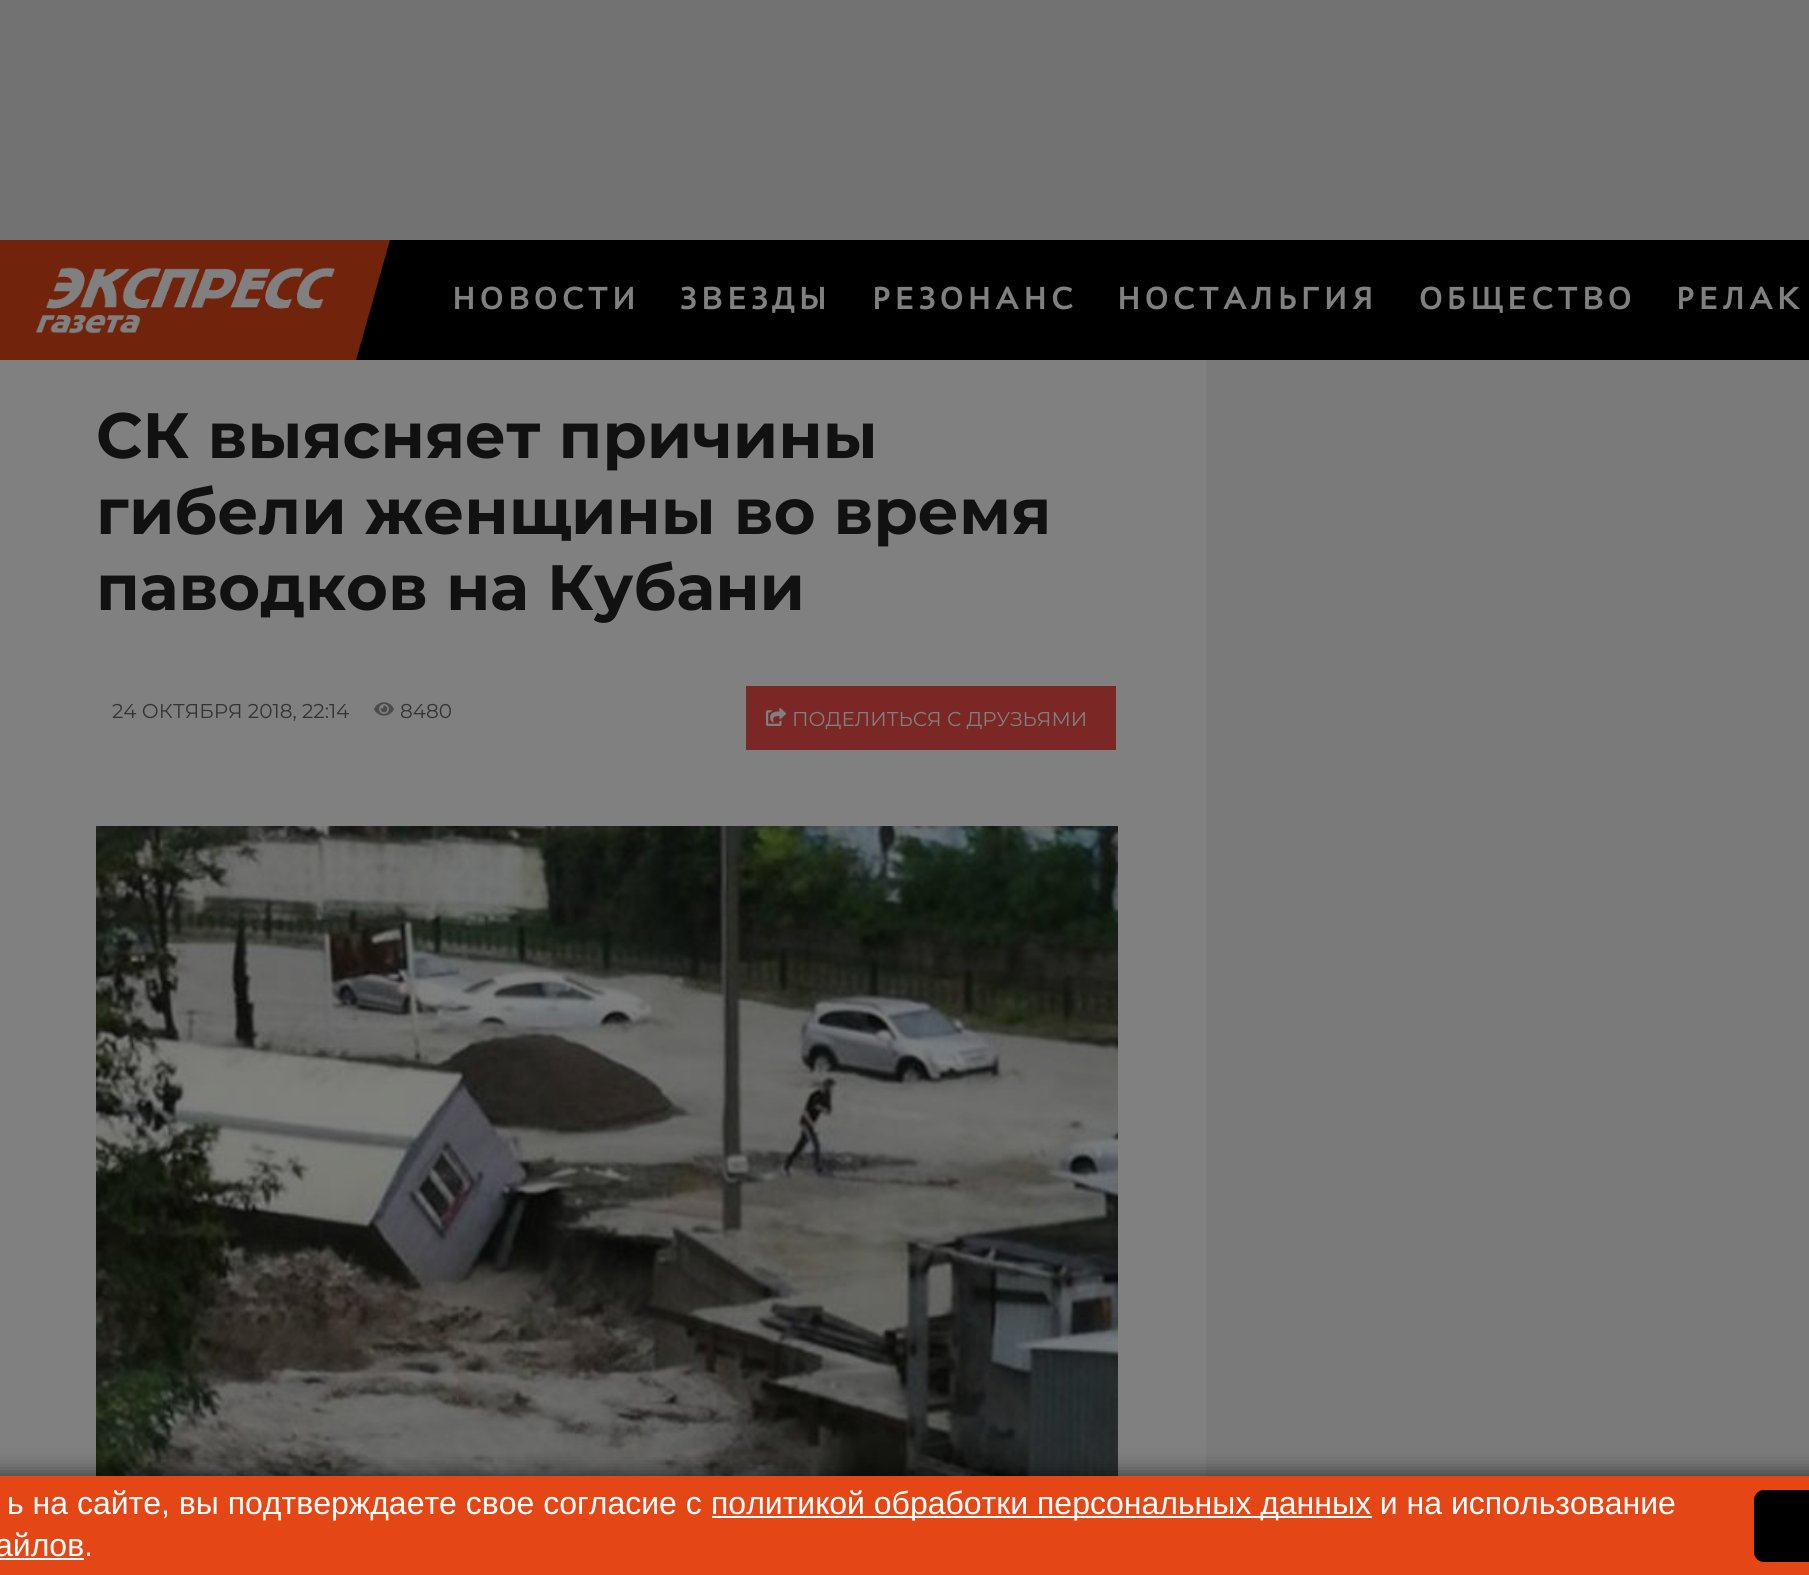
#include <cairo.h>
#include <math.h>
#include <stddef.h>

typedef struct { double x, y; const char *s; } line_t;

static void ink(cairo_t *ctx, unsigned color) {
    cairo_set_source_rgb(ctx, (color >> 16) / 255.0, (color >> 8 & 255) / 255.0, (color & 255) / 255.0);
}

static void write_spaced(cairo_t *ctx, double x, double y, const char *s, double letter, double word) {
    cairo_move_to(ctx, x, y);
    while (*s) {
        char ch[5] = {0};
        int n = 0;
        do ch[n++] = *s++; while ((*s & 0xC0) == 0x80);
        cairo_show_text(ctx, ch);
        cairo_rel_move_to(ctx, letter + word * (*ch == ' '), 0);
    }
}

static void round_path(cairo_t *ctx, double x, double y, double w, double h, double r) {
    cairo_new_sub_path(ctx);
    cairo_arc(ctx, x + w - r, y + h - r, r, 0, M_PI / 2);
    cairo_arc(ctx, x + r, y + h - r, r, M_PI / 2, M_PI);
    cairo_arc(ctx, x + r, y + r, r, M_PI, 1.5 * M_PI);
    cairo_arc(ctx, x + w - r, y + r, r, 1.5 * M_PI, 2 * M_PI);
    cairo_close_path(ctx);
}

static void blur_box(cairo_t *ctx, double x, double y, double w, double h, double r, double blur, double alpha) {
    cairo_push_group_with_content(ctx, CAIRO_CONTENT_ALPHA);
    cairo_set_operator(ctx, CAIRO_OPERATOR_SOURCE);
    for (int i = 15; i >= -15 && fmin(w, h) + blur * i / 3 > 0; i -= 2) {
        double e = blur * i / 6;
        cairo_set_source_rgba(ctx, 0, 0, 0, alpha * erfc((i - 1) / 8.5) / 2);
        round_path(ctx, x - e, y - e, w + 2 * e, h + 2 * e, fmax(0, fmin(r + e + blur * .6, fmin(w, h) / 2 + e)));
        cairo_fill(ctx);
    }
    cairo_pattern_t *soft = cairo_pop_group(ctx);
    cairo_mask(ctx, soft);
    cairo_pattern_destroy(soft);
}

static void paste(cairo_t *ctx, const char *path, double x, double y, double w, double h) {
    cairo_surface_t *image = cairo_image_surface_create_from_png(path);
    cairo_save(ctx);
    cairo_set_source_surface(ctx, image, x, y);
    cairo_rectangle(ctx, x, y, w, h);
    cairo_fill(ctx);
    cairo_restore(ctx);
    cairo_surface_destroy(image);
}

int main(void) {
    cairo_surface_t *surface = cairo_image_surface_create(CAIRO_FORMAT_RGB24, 1809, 1575);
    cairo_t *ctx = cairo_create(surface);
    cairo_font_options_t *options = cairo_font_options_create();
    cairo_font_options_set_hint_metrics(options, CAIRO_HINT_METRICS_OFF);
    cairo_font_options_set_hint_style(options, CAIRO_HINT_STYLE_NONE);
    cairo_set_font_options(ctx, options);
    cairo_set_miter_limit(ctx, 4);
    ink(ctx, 0x727272);
    cairo_paint(ctx);
    ink(ctx, 0x000000);
    cairo_rectangle(ctx, 391, 240, 1418, 120);
    cairo_fill(ctx);
    paste(ctx, "media/1.png", 0, 240, 391, 120);
    cairo_select_font_face(ctx, "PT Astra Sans", CAIRO_FONT_SLANT_NORMAL, CAIRO_FONT_WEIGHT_BOLD);
    cairo_set_font_size(ctx, 32);
    ink(ctx, 0x808080);
    {
        static const line_t items[] = {
            {452, 309, "НОВОСТИ"},
            {680, 309, "ЗВЕЗДЫ"},
            {872, 309, "РЕЗОНАНС"},
            {1117, 309, "НОСТАЛЬГИЯ"},
            {1419, 309, "ОБЩЕСТВО"},
            {1676, 309, "РЕЛАК"},
        };
        for (size_t i = 0; i < sizeof items / sizeof *items; i++) {
            write_spaced(ctx, items[i].x, items[i].y, items[i].s, 4.75, 0);
        }
    }
    ink(ctx, 0x7A7A7A);
    cairo_rectangle(ctx, 1206, 360, 603, 1116);
    cairo_fill(ctx);
    ink(ctx, 0x808080);
    cairo_rectangle(ctx, 0, 360, 1206, 1116);
    cairo_fill(ctx);
    cairo_select_font_face(ctx, "Montserrat", CAIRO_FONT_SLANT_NORMAL, CAIRO_FONT_WEIGHT_BOLD);
    cairo_set_font_size(ctx, 64);
    ink(ctx, 0x111111);
    {
        static const line_t items[] = {
            {96, 458, "СК выясняет причины"},
            {96, 534, "гибели женщины во время"},
            {96, 610, "паводков на Кубани"},
        };
        for (size_t i = 0; i < sizeof items / sizeof *items; i++) {
            cairo_move_to(ctx, items[i].x, items[i].y);
            cairo_show_text(ctx, items[i].s);
        }
    }
    cairo_select_font_face(ctx, "Montserrat", CAIRO_FONT_SLANT_NORMAL, CAIRO_FONT_WEIGHT_NORMAL);
    cairo_set_font_size(ctx, 20);
    ink(ctx, 0x333333);
    cairo_move_to(ctx, 112, 718);
    cairo_show_text(ctx, "24 ОКТЯБРЯ 2018, 22:14");
    paste(ctx, "media/2.png", 374, 702, 20, 14);
    cairo_move_to(ctx, 400, 718);
    cairo_show_text(ctx, "8480");
    ink(ctx, 0x7B2726);
    cairo_rectangle(ctx, 746, 686, 370, 64);
    cairo_fill(ctx);
    paste(ctx, "media/3.png", 766, 708, 20, 18);
    ink(ctx, 0x808080);
    cairo_move_to(ctx, 792, 726);
    cairo_show_text(ctx, "ПОДЕЛИТЬСЯ С ДРУЗЬЯМИ");
    paste(ctx, "media/4.png", 96, 826, 1022, 650);
    ink(ctx, 0x000000);
    blur_box(ctx, -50, 1472, 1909, 100, 20, 10, 0.5);
    ink(ctx, 0xE44616);
    cairo_rectangle(ctx, 0, 1476, 1809, 99);
    cairo_fill(ctx);
    cairo_select_font_face(ctx, "Liberation Sans", CAIRO_FONT_SLANT_NORMAL, CAIRO_FONT_WEIGHT_NORMAL);
    cairo_set_font_size(ctx, 32);
    ink(ctx, 0xFFFFFF);
    cairo_move_to(ctx, 7, 1514);
    cairo_show_text(ctx, "ь на сайте, вы подтверждаете свое согласие с");
    cairo_rectangle(ctx, 712, 1516, 660, 2);
    cairo_fill(ctx);
    cairo_move_to(ctx, 711, 1514);
    cairo_show_text(ctx, "политикой обработки персональных данных и на использование");
    cairo_move_to(ctx, -5, 1556);
    cairo_show_text(ctx, "айлов.");
    cairo_rectangle(ctx, 0, 1558, 84, 2);
    cairo_fill(ctx);
    ink(ctx, 0x000000);
    round_path(ctx, 1754, 1490, 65, 72, 10);
    cairo_fill(ctx);
    cairo_surface_write_to_png(surface, "image.png");
    cairo_font_options_destroy(options);
    cairo_destroy(ctx);
    cairo_surface_destroy(surface);
    return 0;
}
